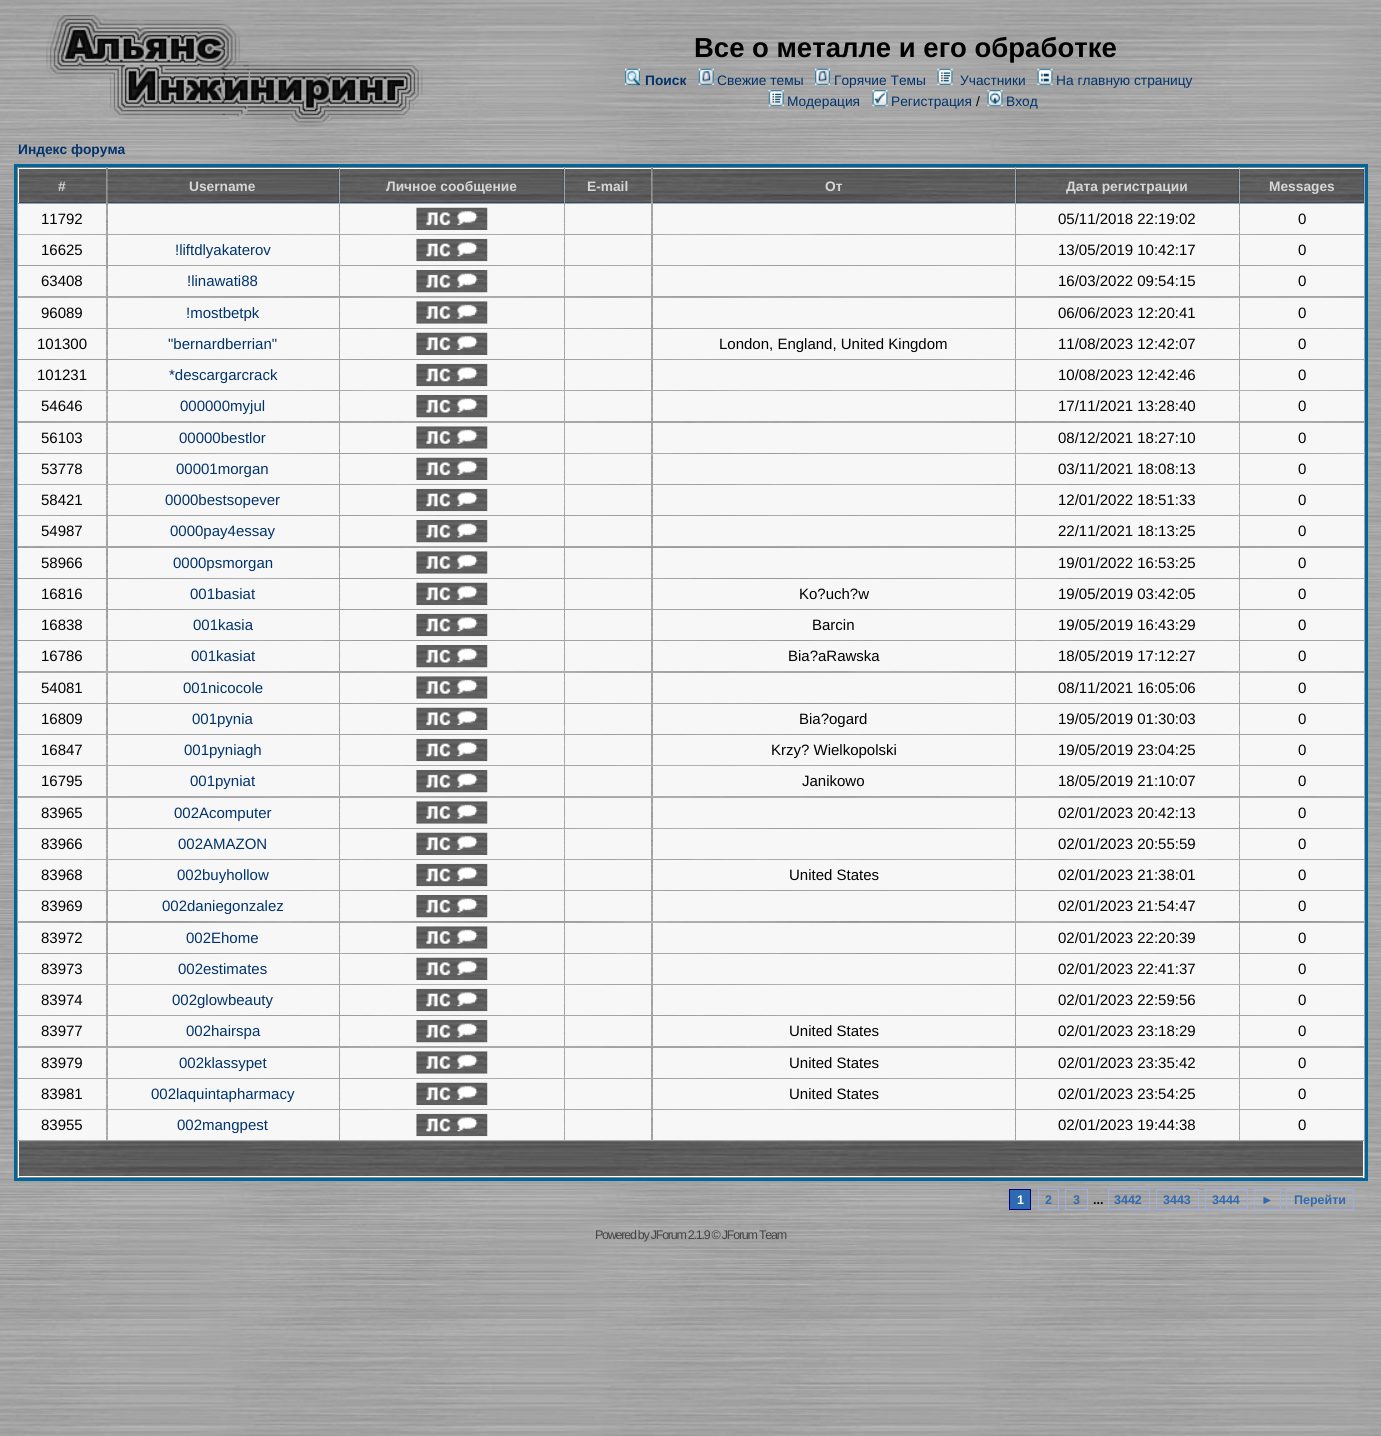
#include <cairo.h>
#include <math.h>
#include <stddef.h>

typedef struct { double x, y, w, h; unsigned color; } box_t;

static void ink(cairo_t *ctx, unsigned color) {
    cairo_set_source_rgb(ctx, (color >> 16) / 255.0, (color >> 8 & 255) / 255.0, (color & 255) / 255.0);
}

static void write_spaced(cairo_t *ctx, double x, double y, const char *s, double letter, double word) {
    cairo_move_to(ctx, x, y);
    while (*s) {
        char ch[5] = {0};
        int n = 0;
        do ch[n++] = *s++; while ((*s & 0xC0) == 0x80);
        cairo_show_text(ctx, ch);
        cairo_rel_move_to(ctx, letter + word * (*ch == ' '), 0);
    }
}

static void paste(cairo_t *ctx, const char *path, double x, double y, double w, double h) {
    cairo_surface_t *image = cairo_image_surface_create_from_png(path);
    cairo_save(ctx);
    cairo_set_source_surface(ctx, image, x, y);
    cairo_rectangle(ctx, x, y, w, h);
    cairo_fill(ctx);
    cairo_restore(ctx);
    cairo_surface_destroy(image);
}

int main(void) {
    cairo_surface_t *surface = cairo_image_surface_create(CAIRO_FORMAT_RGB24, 1381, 1436);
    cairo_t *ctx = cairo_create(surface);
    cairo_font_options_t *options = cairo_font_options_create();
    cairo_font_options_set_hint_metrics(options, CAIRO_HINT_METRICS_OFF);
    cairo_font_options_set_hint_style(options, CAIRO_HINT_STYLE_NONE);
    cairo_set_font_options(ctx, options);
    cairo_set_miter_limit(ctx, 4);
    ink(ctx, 0xFFFFFF);
    cairo_paint(ctx);
    paste(ctx, "media/1.png", 0, 0, 1381, 1436);
    paste(ctx, "media/2.png", 46, 15, 377, 112);
    cairo_select_font_face(ctx, "Liberation Sans", CAIRO_FONT_SLANT_NORMAL, CAIRO_FONT_WEIGHT_BOLD);
    cairo_set_font_size(ctx, 27.5);
    ink(ctx, 0x000000);
    cairo_move_to(ctx, 694, 57);
    cairo_show_text(ctx, "Все о металле и его обработке");
    paste(ctx, "media/3.png", 625, 68, 15, 17);
    cairo_set_font_size(ctx, 13.75);
    ink(ctx, 0x01336B);
    cairo_move_to(ctx, 645, 85);
    cairo_show_text(ctx, "Поиск");
    paste(ctx, "media/4.png", 698, 68, 16, 17);
    cairo_select_font_face(ctx, "Liberation Sans", CAIRO_FONT_SLANT_NORMAL, CAIRO_FONT_WEIGHT_NORMAL);
    cairo_move_to(ctx, 717, 85);
    cairo_show_text(ctx, "Свежие темы");
    paste(ctx, "media/5.png", 815, 68, 15, 17);
    cairo_move_to(ctx, 834, 85);
    cairo_show_text(ctx, "Горячие Темы");
    paste(ctx, "media/6.png", 937, 68, 16, 17);
    cairo_move_to(ctx, 960, 85);
    cairo_show_text(ctx, "Участники");
    paste(ctx, "media/7.png", 1037, 68, 16, 17);
    cairo_move_to(ctx, 1056, 85);
    cairo_show_text(ctx, "На главную страницу");
    paste(ctx, "media/8.png", 768, 90, 16, 17);
    cairo_move_to(ctx, 787, 106);
    cairo_show_text(ctx, "Модерация");
    paste(ctx, "media/9.png", 872, 90, 16, 17);
    cairo_move_to(ctx, 891, 106);
    cairo_show_text(ctx, "Регистрация");
    ink(ctx, 0x000000);
    cairo_move_to(ctx, 976, 106);
    cairo_show_text(ctx, "/");
    paste(ctx, "media/10.png", 987, 90, 16, 17);
    ink(ctx, 0x01336B);
    cairo_move_to(ctx, 1006, 106);
    cairo_show_text(ctx, "Вход");
    cairo_select_font_face(ctx, "Liberation Sans", CAIRO_FONT_SLANT_NORMAL, CAIRO_FONT_WEIGHT_BOLD);
    cairo_move_to(ctx, 18, 154);
    cairo_show_text(ctx, "Индекс форума");
    cairo_rectangle(ctx, 15.5, 165.5, 1351, 1014);
    ink(ctx, 0x006699);
    cairo_set_line_width(ctx, 3);
    cairo_stroke(ctx);
    ink(ctx, 0x01336B);
    cairo_rectangle(ctx, 19, 202, 87, 1);
    cairo_fill(ctx);
    paste(ctx, "media/11.png", 17, 167, 90, 36);
    ink(ctx, 0xFFFFFF);
    cairo_rectangle(ctx, 18, 168, 88, 1);
    cairo_fill(ctx);
    cairo_rectangle(ctx, 18, 168, 1, 35);
    cairo_fill(ctx);
    ink(ctx, 0xD6D6D6);
    cairo_move_to(ctx, 58, 191);
    cairo_show_text(ctx, "#");
    ink(ctx, 0x01336B);
    cairo_rectangle(ctx, 108, 169, 231, 34);
    cairo_fill(ctx);
    paste(ctx, "media/12.png", 107, 167, 232, 36);
    ink(ctx, 0xFFFFFF);
    cairo_rectangle(ctx, 108, 168, 231, 1);
    cairo_fill(ctx);
    ink(ctx, 0xD6D6D6);
    cairo_move_to(ctx, 189, 191);
    cairo_show_text(ctx, "Username");
    ink(ctx, 0x01336B);
    cairo_rectangle(ctx, 340, 169, 224, 34);
    cairo_fill(ctx);
    paste(ctx, "media/13.png", 340, 167, 224, 36);
    ink(ctx, 0xFFFFFF);
    cairo_rectangle(ctx, 340, 168, 224, 1);
    cairo_fill(ctx);
    ink(ctx, 0xD6D6D6);
    cairo_move_to(ctx, 386, 191);
    cairo_show_text(ctx, "Личное сообщение");
    ink(ctx, 0x01336B);
    cairo_rectangle(ctx, 565, 202, 86, 1);
    cairo_fill(ctx);
    paste(ctx, "media/14.png", 565, 167, 87, 36);
    ink(ctx, 0xFFFFFF);
    cairo_rectangle(ctx, 565, 168, 86, 1);
    cairo_fill(ctx);
    ink(ctx, 0xD6D6D6);
    cairo_move_to(ctx, 587, 191);
    cairo_show_text(ctx, "E-mail");
    ink(ctx, 0x01336B);
    cairo_rectangle(ctx, 653, 202, 362, 1);
    cairo_fill(ctx);
    paste(ctx, "media/15.png", 652, 167, 363, 36);
    ink(ctx, 0xFFFFFF);
    cairo_rectangle(ctx, 653, 168, 362, 1);
    cairo_fill(ctx);
    ink(ctx, 0xD6D6D6);
    cairo_move_to(ctx, 825, 191);
    cairo_show_text(ctx, "От");
    ink(ctx, 0x01336B);
    cairo_rectangle(ctx, 1016, 169, 223, 34);
    cairo_fill(ctx);
    paste(ctx, "media/16.png", 1016, 167, 223, 36);
    ink(ctx, 0xFFFFFF);
    cairo_rectangle(ctx, 1016, 168, 223, 1);
    cairo_fill(ctx);
    ink(ctx, 0xD6D6D6);
    cairo_move_to(ctx, 1066, 191);
    cairo_show_text(ctx, "Дата регистрации");
    ink(ctx, 0x01336B);
    cairo_rectangle(ctx, 1240, 169, 124, 34);
    cairo_fill(ctx);
    paste(ctx, "media/17.png", 1240, 167, 124, 36);
    ink(ctx, 0xFFFFFF);
    cairo_rectangle(ctx, 1240, 168, 124, 1);
    cairo_fill(ctx);
    ink(ctx, 0xD6D6D6);
    cairo_move_to(ctx, 1269, 191);
    cairo_show_text(ctx, "Messages");
    ink(ctx, 0xF7F7F8);
    cairo_rectangle(ctx, 18, 204, 88, 30);
    cairo_fill(ctx);
    cairo_select_font_face(ctx, "Liberation Sans", CAIRO_FONT_SLANT_NORMAL, CAIRO_FONT_WEIGHT_NORMAL);
    cairo_set_font_size(ctx, 15);
    ink(ctx, 0x000000);
    cairo_move_to(ctx, 41, 224);
    cairo_show_text(ctx, "11792");
    ink(ctx, 0xF7F7F8);
    cairo_rectangle(ctx, 108, 204, 231, 30);
    cairo_fill(ctx);
    cairo_rectangle(ctx, 340, 204, 224, 30);
    cairo_fill(ctx);
    paste(ctx, "media/18.png", 416, 207, 72, 23);
    {
        static const box_t items[] = {
            {565, 204, 86, 30, 0xF7F7F8},
            {653, 204, 362, 30, 0xF7F7F8},
            {1016, 204, 223, 30, 0xF7F7F8},
        };
        for (size_t i = 0; i < sizeof items / sizeof *items; i++) {
            ink(ctx, items[i].color);
            cairo_rectangle(ctx, items[i].x, items[i].y, items[i].w, items[i].h);
            cairo_fill(ctx);
        }
    }
    ink(ctx, 0x000000);
    cairo_move_to(ctx, 1058, 224);
    cairo_show_text(ctx, "05/11/2018 22:19:02");
    ink(ctx, 0xF7F7F8);
    cairo_rectangle(ctx, 1240, 204, 124, 30);
    cairo_fill(ctx);
    ink(ctx, 0x000000);
    cairo_move_to(ctx, 1298, 224);
    cairo_show_text(ctx, "0");
    ink(ctx, 0xF7F7F8);
    cairo_rectangle(ctx, 18, 235, 88, 30);
    cairo_fill(ctx);
    ink(ctx, 0x000000);
    cairo_move_to(ctx, 41, 255);
    cairo_show_text(ctx, "16625");
    ink(ctx, 0xF7F7F8);
    cairo_rectangle(ctx, 108, 235, 231, 30);
    cairo_fill(ctx);
    ink(ctx, 0x01336B);
    cairo_move_to(ctx, 175, 255);
    cairo_show_text(ctx, "!liftdlyakaterov");
    ink(ctx, 0xF7F7F8);
    cairo_rectangle(ctx, 340, 235, 224, 30);
    cairo_fill(ctx);
    paste(ctx, "media/19.png", 416, 238, 72, 24);
    {
        static const box_t items[] = {
            {565, 235, 86, 30, 0xF7F7F8},
            {653, 235, 362, 30, 0xF7F7F8},
            {1016, 235, 223, 30, 0xF7F7F8},
        };
        for (size_t i = 0; i < sizeof items / sizeof *items; i++) {
            ink(ctx, items[i].color);
            cairo_rectangle(ctx, items[i].x, items[i].y, items[i].w, items[i].h);
            cairo_fill(ctx);
        }
    }
    ink(ctx, 0x000000);
    cairo_move_to(ctx, 1058, 255);
    cairo_show_text(ctx, "13/05/2019 10:42:17");
    ink(ctx, 0xF7F7F8);
    cairo_rectangle(ctx, 1240, 235, 124, 30);
    cairo_fill(ctx);
    ink(ctx, 0x000000);
    cairo_move_to(ctx, 1298, 255);
    cairo_show_text(ctx, "0");
    ink(ctx, 0xF7F7F8);
    cairo_rectangle(ctx, 18, 266, 88, 30);
    cairo_fill(ctx);
    ink(ctx, 0x000000);
    cairo_move_to(ctx, 41, 286);
    cairo_show_text(ctx, "63408");
    ink(ctx, 0xF7F7F8);
    cairo_rectangle(ctx, 108, 266, 231, 30);
    cairo_fill(ctx);
    ink(ctx, 0x01336B);
    cairo_move_to(ctx, 187, 286);
    cairo_show_text(ctx, "!linawati88");
    ink(ctx, 0xF7F7F8);
    cairo_rectangle(ctx, 340, 266, 224, 30);
    cairo_fill(ctx);
    paste(ctx, "media/20.png", 416, 270, 72, 23);
    {
        static const box_t items[] = {
            {565, 266, 86, 30, 0xF7F7F8},
            {653, 266, 362, 30, 0xF7F7F8},
            {1016, 266, 223, 30, 0xF7F7F8},
        };
        for (size_t i = 0; i < sizeof items / sizeof *items; i++) {
            ink(ctx, items[i].color);
            cairo_rectangle(ctx, items[i].x, items[i].y, items[i].w, items[i].h);
            cairo_fill(ctx);
        }
    }
    ink(ctx, 0x000000);
    cairo_move_to(ctx, 1058, 286);
    cairo_show_text(ctx, "16/03/2022 09:54:15");
    ink(ctx, 0xF7F7F8);
    cairo_rectangle(ctx, 1240, 266, 124, 30);
    cairo_fill(ctx);
    ink(ctx, 0x000000);
    cairo_move_to(ctx, 1298, 286);
    cairo_show_text(ctx, "0");
    ink(ctx, 0xF7F7F8);
    cairo_rectangle(ctx, 18, 298, 88, 30);
    cairo_fill(ctx);
    ink(ctx, 0x000000);
    cairo_move_to(ctx, 41, 318);
    cairo_show_text(ctx, "96089");
    ink(ctx, 0xF7F7F8);
    cairo_rectangle(ctx, 108, 298, 231, 30);
    cairo_fill(ctx);
    ink(ctx, 0x01336B);
    cairo_move_to(ctx, 186, 318);
    cairo_show_text(ctx, "!mostbetpk");
    ink(ctx, 0xF7F7F8);
    cairo_rectangle(ctx, 340, 298, 224, 30);
    cairo_fill(ctx);
    paste(ctx, "media/21.png", 416, 301, 72, 23);
    {
        static const box_t items[] = {
            {565, 298, 86, 30, 0xF7F7F8},
            {653, 298, 362, 30, 0xF7F7F8},
            {1016, 298, 223, 30, 0xF7F7F8},
        };
        for (size_t i = 0; i < sizeof items / sizeof *items; i++) {
            ink(ctx, items[i].color);
            cairo_rectangle(ctx, items[i].x, items[i].y, items[i].w, items[i].h);
            cairo_fill(ctx);
        }
    }
    ink(ctx, 0x000000);
    cairo_move_to(ctx, 1058, 318);
    cairo_show_text(ctx, "06/06/2023 12:20:41");
    ink(ctx, 0xF7F7F8);
    cairo_rectangle(ctx, 1240, 298, 124, 30);
    cairo_fill(ctx);
    ink(ctx, 0x000000);
    cairo_move_to(ctx, 1298, 318);
    cairo_show_text(ctx, "0");
    ink(ctx, 0xF7F7F8);
    cairo_rectangle(ctx, 18, 329, 88, 30);
    cairo_fill(ctx);
    ink(ctx, 0x000000);
    cairo_move_to(ctx, 37, 349);
    cairo_show_text(ctx, "101300");
    ink(ctx, 0xF7F7F8);
    cairo_rectangle(ctx, 108, 329, 231, 30);
    cairo_fill(ctx);
    ink(ctx, 0x01336B);
    cairo_move_to(ctx, 168, 349);
    cairo_show_text(ctx, "\"bernardberrian\"");
    ink(ctx, 0xF7F7F8);
    cairo_rectangle(ctx, 340, 329, 224, 30);
    cairo_fill(ctx);
    paste(ctx, "media/22.png", 416, 332, 72, 23);
    cairo_rectangle(ctx, 565, 329, 86, 30);
    cairo_fill(ctx);
    cairo_rectangle(ctx, 653, 329, 362, 30);
    cairo_fill(ctx);
    ink(ctx, 0x000000);
    cairo_move_to(ctx, 719, 349);
    cairo_show_text(ctx, "London, England, United Kingdom");
    ink(ctx, 0xF7F7F8);
    cairo_rectangle(ctx, 1016, 329, 223, 30);
    cairo_fill(ctx);
    ink(ctx, 0x000000);
    cairo_move_to(ctx, 1058, 349);
    cairo_show_text(ctx, "11/08/2023 12:42:07");
    ink(ctx, 0xF7F7F8);
    cairo_rectangle(ctx, 1240, 329, 124, 30);
    cairo_fill(ctx);
    ink(ctx, 0x000000);
    cairo_move_to(ctx, 1298, 349);
    cairo_show_text(ctx, "0");
    ink(ctx, 0xF7F7F8);
    cairo_rectangle(ctx, 18, 360, 88, 30);
    cairo_fill(ctx);
    ink(ctx, 0x000000);
    cairo_move_to(ctx, 37, 380);
    cairo_show_text(ctx, "101231");
    ink(ctx, 0xF7F7F8);
    cairo_rectangle(ctx, 108, 360, 231, 30);
    cairo_fill(ctx);
    ink(ctx, 0x01336B);
    cairo_move_to(ctx, 169, 380);
    cairo_show_text(ctx, "*descargarcrack");
    ink(ctx, 0xF7F7F8);
    cairo_rectangle(ctx, 340, 360, 224, 30);
    cairo_fill(ctx);
    paste(ctx, "media/23.png", 416, 363, 72, 24);
    {
        static const box_t items[] = {
            {565, 360, 86, 30, 0xF7F7F8},
            {653, 360, 362, 30, 0xF7F7F8},
            {1016, 360, 223, 30, 0xF7F7F8},
        };
        for (size_t i = 0; i < sizeof items / sizeof *items; i++) {
            ink(ctx, items[i].color);
            cairo_rectangle(ctx, items[i].x, items[i].y, items[i].w, items[i].h);
            cairo_fill(ctx);
        }
    }
    ink(ctx, 0x000000);
    cairo_move_to(ctx, 1058, 380);
    cairo_show_text(ctx, "10/08/2023 12:42:46");
    ink(ctx, 0xF7F7F8);
    cairo_rectangle(ctx, 1240, 360, 124, 30);
    cairo_fill(ctx);
    ink(ctx, 0x000000);
    cairo_move_to(ctx, 1298, 380);
    cairo_show_text(ctx, "0");
    ink(ctx, 0xF7F7F8);
    cairo_rectangle(ctx, 18, 391, 88, 30);
    cairo_fill(ctx);
    ink(ctx, 0x000000);
    cairo_move_to(ctx, 41, 411);
    cairo_show_text(ctx, "54646");
    ink(ctx, 0xF7F7F8);
    cairo_rectangle(ctx, 108, 391, 231, 30);
    cairo_fill(ctx);
    ink(ctx, 0x01336B);
    cairo_move_to(ctx, 180, 411);
    cairo_show_text(ctx, "000000myjul");
    ink(ctx, 0xF7F7F8);
    cairo_rectangle(ctx, 340, 391, 224, 30);
    cairo_fill(ctx);
    paste(ctx, "media/24.png", 416, 395, 72, 23);
    {
        static const box_t items[] = {
            {565, 391, 86, 30, 0xF7F7F8},
            {653, 391, 362, 30, 0xF7F7F8},
            {1016, 391, 223, 30, 0xF7F7F8},
        };
        for (size_t i = 0; i < sizeof items / sizeof *items; i++) {
            ink(ctx, items[i].color);
            cairo_rectangle(ctx, items[i].x, items[i].y, items[i].w, items[i].h);
            cairo_fill(ctx);
        }
    }
    ink(ctx, 0x000000);
    cairo_move_to(ctx, 1058, 411);
    cairo_show_text(ctx, "17/11/2021 13:28:40");
    ink(ctx, 0xF7F7F8);
    cairo_rectangle(ctx, 1240, 391, 124, 30);
    cairo_fill(ctx);
    ink(ctx, 0x000000);
    cairo_move_to(ctx, 1298, 411);
    cairo_show_text(ctx, "0");
    ink(ctx, 0xF7F7F8);
    cairo_rectangle(ctx, 18, 423, 88, 30);
    cairo_fill(ctx);
    ink(ctx, 0x000000);
    cairo_move_to(ctx, 41, 443);
    cairo_show_text(ctx, "56103");
    ink(ctx, 0xF7F7F8);
    cairo_rectangle(ctx, 108, 423, 231, 30);
    cairo_fill(ctx);
    ink(ctx, 0x01336B);
    cairo_move_to(ctx, 179, 443);
    cairo_show_text(ctx, "00000bestlor");
    ink(ctx, 0xF7F7F8);
    cairo_rectangle(ctx, 340, 423, 224, 30);
    cairo_fill(ctx);
    paste(ctx, "media/25.png", 416, 426, 72, 23);
    {
        static const box_t items[] = {
            {565, 423, 86, 30, 0xF7F7F8},
            {653, 423, 362, 30, 0xF7F7F8},
            {1016, 423, 223, 30, 0xF7F7F8},
        };
        for (size_t i = 0; i < sizeof items / sizeof *items; i++) {
            ink(ctx, items[i].color);
            cairo_rectangle(ctx, items[i].x, items[i].y, items[i].w, items[i].h);
            cairo_fill(ctx);
        }
    }
    ink(ctx, 0x000000);
    cairo_move_to(ctx, 1058, 443);
    cairo_show_text(ctx, "08/12/2021 18:27:10");
    ink(ctx, 0xF7F7F8);
    cairo_rectangle(ctx, 1240, 423, 124, 30);
    cairo_fill(ctx);
    ink(ctx, 0x000000);
    cairo_move_to(ctx, 1298, 443);
    cairo_show_text(ctx, "0");
    ink(ctx, 0xF7F7F8);
    cairo_rectangle(ctx, 18, 454, 88, 30);
    cairo_fill(ctx);
    ink(ctx, 0x000000);
    cairo_move_to(ctx, 41, 474);
    cairo_show_text(ctx, "53778");
    ink(ctx, 0xF7F7F8);
    cairo_rectangle(ctx, 108, 454, 231, 30);
    cairo_fill(ctx);
    ink(ctx, 0x01336B);
    cairo_move_to(ctx, 176, 474);
    cairo_show_text(ctx, "00001morgan");
    ink(ctx, 0xF7F7F8);
    cairo_rectangle(ctx, 340, 454, 224, 30);
    cairo_fill(ctx);
    paste(ctx, "media/26.png", 416, 457, 72, 23);
    {
        static const box_t items[] = {
            {565, 454, 86, 30, 0xF7F7F8},
            {653, 454, 362, 30, 0xF7F7F8},
            {1016, 454, 223, 30, 0xF7F7F8},
        };
        for (size_t i = 0; i < sizeof items / sizeof *items; i++) {
            ink(ctx, items[i].color);
            cairo_rectangle(ctx, items[i].x, items[i].y, items[i].w, items[i].h);
            cairo_fill(ctx);
        }
    }
    ink(ctx, 0x000000);
    cairo_move_to(ctx, 1058, 474);
    cairo_show_text(ctx, "03/11/2021 18:08:13");
    ink(ctx, 0xF7F7F8);
    cairo_rectangle(ctx, 1240, 454, 124, 30);
    cairo_fill(ctx);
    ink(ctx, 0x000000);
    cairo_move_to(ctx, 1298, 474);
    cairo_show_text(ctx, "0");
    ink(ctx, 0xF7F7F8);
    cairo_rectangle(ctx, 18, 485, 88, 30);
    cairo_fill(ctx);
    ink(ctx, 0x000000);
    cairo_move_to(ctx, 41, 505);
    cairo_show_text(ctx, "58421");
    ink(ctx, 0xF7F7F8);
    cairo_rectangle(ctx, 108, 485, 231, 30);
    cairo_fill(ctx);
    ink(ctx, 0x01336B);
    cairo_move_to(ctx, 165, 505);
    cairo_show_text(ctx, "0000bestsopever");
    ink(ctx, 0xF7F7F8);
    cairo_rectangle(ctx, 340, 485, 224, 30);
    cairo_fill(ctx);
    paste(ctx, "media/27.png", 416, 488, 72, 24);
    {
        static const box_t items[] = {
            {565, 485, 86, 30, 0xF7F7F8},
            {653, 485, 362, 30, 0xF7F7F8},
            {1016, 485, 223, 30, 0xF7F7F8},
        };
        for (size_t i = 0; i < sizeof items / sizeof *items; i++) {
            ink(ctx, items[i].color);
            cairo_rectangle(ctx, items[i].x, items[i].y, items[i].w, items[i].h);
            cairo_fill(ctx);
        }
    }
    ink(ctx, 0x000000);
    cairo_move_to(ctx, 1058, 505);
    cairo_show_text(ctx, "12/01/2022 18:51:33");
    ink(ctx, 0xF7F7F8);
    cairo_rectangle(ctx, 1240, 485, 124, 30);
    cairo_fill(ctx);
    ink(ctx, 0x000000);
    cairo_move_to(ctx, 1298, 505);
    cairo_show_text(ctx, "0");
    ink(ctx, 0xF7F7F8);
    cairo_rectangle(ctx, 18, 516, 88, 30);
    cairo_fill(ctx);
    ink(ctx, 0x000000);
    cairo_move_to(ctx, 41, 536);
    cairo_show_text(ctx, "54987");
    ink(ctx, 0xF7F7F8);
    cairo_rectangle(ctx, 108, 516, 231, 30);
    cairo_fill(ctx);
    ink(ctx, 0x01336B);
    cairo_move_to(ctx, 170, 536);
    cairo_show_text(ctx, "0000pay4essay");
    ink(ctx, 0xF7F7F8);
    cairo_rectangle(ctx, 340, 516, 224, 30);
    cairo_fill(ctx);
    paste(ctx, "media/28.png", 416, 520, 72, 23);
    {
        static const box_t items[] = {
            {565, 516, 86, 30, 0xF7F7F8},
            {653, 516, 362, 30, 0xF7F7F8},
            {1016, 516, 223, 30, 0xF7F7F8},
        };
        for (size_t i = 0; i < sizeof items / sizeof *items; i++) {
            ink(ctx, items[i].color);
            cairo_rectangle(ctx, items[i].x, items[i].y, items[i].w, items[i].h);
            cairo_fill(ctx);
        }
    }
    ink(ctx, 0x000000);
    cairo_move_to(ctx, 1058, 536);
    cairo_show_text(ctx, "22/11/2021 18:13:25");
    ink(ctx, 0xF7F7F8);
    cairo_rectangle(ctx, 1240, 516, 124, 30);
    cairo_fill(ctx);
    ink(ctx, 0x000000);
    cairo_move_to(ctx, 1298, 536);
    cairo_show_text(ctx, "0");
    ink(ctx, 0xF7F7F8);
    cairo_rectangle(ctx, 18, 548, 88, 30);
    cairo_fill(ctx);
    ink(ctx, 0x000000);
    cairo_move_to(ctx, 41, 568);
    cairo_show_text(ctx, "58966");
    ink(ctx, 0xF7F7F8);
    cairo_rectangle(ctx, 108, 548, 231, 30);
    cairo_fill(ctx);
    ink(ctx, 0x01336B);
    cairo_move_to(ctx, 173, 568);
    cairo_show_text(ctx, "0000psmorgan");
    ink(ctx, 0xF7F7F8);
    cairo_rectangle(ctx, 340, 548, 224, 30);
    cairo_fill(ctx);
    paste(ctx, "media/29.png", 416, 551, 72, 23);
    {
        static const box_t items[] = {
            {565, 548, 86, 30, 0xF7F7F8},
            {653, 548, 362, 30, 0xF7F7F8},
            {1016, 548, 223, 30, 0xF7F7F8},
        };
        for (size_t i = 0; i < sizeof items / sizeof *items; i++) {
            ink(ctx, items[i].color);
            cairo_rectangle(ctx, items[i].x, items[i].y, items[i].w, items[i].h);
            cairo_fill(ctx);
        }
    }
    ink(ctx, 0x000000);
    cairo_move_to(ctx, 1058, 568);
    cairo_show_text(ctx, "19/01/2022 16:53:25");
    ink(ctx, 0xF7F7F8);
    cairo_rectangle(ctx, 1240, 548, 124, 30);
    cairo_fill(ctx);
    ink(ctx, 0x000000);
    cairo_move_to(ctx, 1298, 568);
    cairo_show_text(ctx, "0");
    ink(ctx, 0xF7F7F8);
    cairo_rectangle(ctx, 18, 579, 88, 30);
    cairo_fill(ctx);
    ink(ctx, 0x000000);
    cairo_move_to(ctx, 41, 599);
    cairo_show_text(ctx, "16816");
    ink(ctx, 0xF7F7F8);
    cairo_rectangle(ctx, 108, 579, 231, 30);
    cairo_fill(ctx);
    ink(ctx, 0x01336B);
    cairo_move_to(ctx, 190, 599);
    cairo_show_text(ctx, "001basiat");
    ink(ctx, 0xF7F7F8);
    cairo_rectangle(ctx, 340, 579, 224, 30);
    cairo_fill(ctx);
    paste(ctx, "media/30.png", 416, 582, 72, 23);
    cairo_rectangle(ctx, 565, 579, 86, 30);
    cairo_fill(ctx);
    cairo_rectangle(ctx, 653, 579, 362, 30);
    cairo_fill(ctx);
    ink(ctx, 0x000000);
    cairo_move_to(ctx, 799, 599);
    cairo_show_text(ctx, "Ko?uch?w");
    ink(ctx, 0xF7F7F8);
    cairo_rectangle(ctx, 1016, 579, 223, 30);
    cairo_fill(ctx);
    ink(ctx, 0x000000);
    cairo_move_to(ctx, 1058, 599);
    cairo_show_text(ctx, "19/05/2019 03:42:05");
    ink(ctx, 0xF7F7F8);
    cairo_rectangle(ctx, 1240, 579, 124, 30);
    cairo_fill(ctx);
    ink(ctx, 0x000000);
    cairo_move_to(ctx, 1298, 599);
    cairo_show_text(ctx, "0");
    ink(ctx, 0xF7F7F8);
    cairo_rectangle(ctx, 18, 610, 88, 30);
    cairo_fill(ctx);
    ink(ctx, 0x000000);
    cairo_move_to(ctx, 41, 630);
    cairo_show_text(ctx, "16838");
    ink(ctx, 0xF7F7F8);
    cairo_rectangle(ctx, 108, 610, 231, 30);
    cairo_fill(ctx);
    ink(ctx, 0x01336B);
    cairo_move_to(ctx, 193, 630);
    cairo_show_text(ctx, "001kasia");
    ink(ctx, 0xF7F7F8);
    cairo_rectangle(ctx, 340, 610, 224, 30);
    cairo_fill(ctx);
    paste(ctx, "media/31.png", 416, 613, 72, 24);
    cairo_rectangle(ctx, 565, 610, 86, 30);
    cairo_fill(ctx);
    cairo_rectangle(ctx, 653, 610, 362, 30);
    cairo_fill(ctx);
    ink(ctx, 0x000000);
    cairo_move_to(ctx, 812, 630);
    cairo_show_text(ctx, "Barcin");
    ink(ctx, 0xF7F7F8);
    cairo_rectangle(ctx, 1016, 610, 223, 30);
    cairo_fill(ctx);
    ink(ctx, 0x000000);
    cairo_move_to(ctx, 1058, 630);
    cairo_show_text(ctx, "19/05/2019 16:43:29");
    ink(ctx, 0xF7F7F8);
    cairo_rectangle(ctx, 1240, 610, 124, 30);
    cairo_fill(ctx);
    ink(ctx, 0x000000);
    cairo_move_to(ctx, 1298, 630);
    cairo_show_text(ctx, "0");
    ink(ctx, 0xF7F7F8);
    cairo_rectangle(ctx, 18, 641, 88, 30);
    cairo_fill(ctx);
    ink(ctx, 0x000000);
    cairo_move_to(ctx, 41, 661);
    cairo_show_text(ctx, "16786");
    ink(ctx, 0xF7F7F8);
    cairo_rectangle(ctx, 108, 641, 231, 30);
    cairo_fill(ctx);
    ink(ctx, 0x01336B);
    cairo_move_to(ctx, 191, 661);
    cairo_show_text(ctx, "001kasiat");
    ink(ctx, 0xF7F7F8);
    cairo_rectangle(ctx, 340, 641, 224, 30);
    cairo_fill(ctx);
    paste(ctx, "media/32.png", 416, 645, 72, 23);
    cairo_rectangle(ctx, 565, 641, 86, 30);
    cairo_fill(ctx);
    cairo_rectangle(ctx, 653, 641, 362, 30);
    cairo_fill(ctx);
    ink(ctx, 0x000000);
    cairo_move_to(ctx, 788, 661);
    cairo_show_text(ctx, "Bia?aRawska");
    ink(ctx, 0xF7F7F8);
    cairo_rectangle(ctx, 1016, 641, 223, 30);
    cairo_fill(ctx);
    ink(ctx, 0x000000);
    cairo_move_to(ctx, 1058, 661);
    cairo_show_text(ctx, "18/05/2019 17:12:27");
    ink(ctx, 0xF7F7F8);
    cairo_rectangle(ctx, 1240, 641, 124, 30);
    cairo_fill(ctx);
    ink(ctx, 0x000000);
    cairo_move_to(ctx, 1298, 661);
    cairo_show_text(ctx, "0");
    ink(ctx, 0xF7F7F8);
    cairo_rectangle(ctx, 18, 673, 88, 30);
    cairo_fill(ctx);
    ink(ctx, 0x000000);
    cairo_move_to(ctx, 41, 693);
    cairo_show_text(ctx, "54081");
    ink(ctx, 0xF7F7F8);
    cairo_rectangle(ctx, 108, 673, 231, 30);
    cairo_fill(ctx);
    ink(ctx, 0x01336B);
    cairo_move_to(ctx, 183, 693);
    cairo_show_text(ctx, "001nicocole");
    ink(ctx, 0xF7F7F8);
    cairo_rectangle(ctx, 340, 673, 224, 30);
    cairo_fill(ctx);
    paste(ctx, "media/33.png", 416, 676, 72, 23);
    {
        static const box_t items[] = {
            {565, 673, 86, 30, 0xF7F7F8},
            {653, 673, 362, 30, 0xF7F7F8},
            {1016, 673, 223, 30, 0xF7F7F8},
        };
        for (size_t i = 0; i < sizeof items / sizeof *items; i++) {
            ink(ctx, items[i].color);
            cairo_rectangle(ctx, items[i].x, items[i].y, items[i].w, items[i].h);
            cairo_fill(ctx);
        }
    }
    ink(ctx, 0x000000);
    cairo_move_to(ctx, 1058, 693);
    cairo_show_text(ctx, "08/11/2021 16:05:06");
    ink(ctx, 0xF7F7F8);
    cairo_rectangle(ctx, 1240, 673, 124, 30);
    cairo_fill(ctx);
    ink(ctx, 0x000000);
    cairo_move_to(ctx, 1298, 693);
    cairo_show_text(ctx, "0");
    ink(ctx, 0xF7F7F8);
    cairo_rectangle(ctx, 18, 704, 88, 30);
    cairo_fill(ctx);
    ink(ctx, 0x000000);
    cairo_move_to(ctx, 41, 724);
    cairo_show_text(ctx, "16809");
    ink(ctx, 0xF7F7F8);
    cairo_rectangle(ctx, 108, 704, 231, 30);
    cairo_fill(ctx);
    ink(ctx, 0x01336B);
    cairo_move_to(ctx, 192, 724);
    cairo_show_text(ctx, "001pynia");
    ink(ctx, 0xF7F7F8);
    cairo_rectangle(ctx, 340, 704, 224, 30);
    cairo_fill(ctx);
    paste(ctx, "media/34.png", 416, 707, 72, 23);
    cairo_rectangle(ctx, 565, 704, 86, 30);
    cairo_fill(ctx);
    cairo_rectangle(ctx, 653, 704, 362, 30);
    cairo_fill(ctx);
    ink(ctx, 0x000000);
    cairo_move_to(ctx, 799, 724);
    cairo_show_text(ctx, "Bia?ogard");
    ink(ctx, 0xF7F7F8);
    cairo_rectangle(ctx, 1016, 704, 223, 30);
    cairo_fill(ctx);
    ink(ctx, 0x000000);
    cairo_move_to(ctx, 1058, 724);
    cairo_show_text(ctx, "19/05/2019 01:30:03");
    ink(ctx, 0xF7F7F8);
    cairo_rectangle(ctx, 1240, 704, 124, 30);
    cairo_fill(ctx);
    ink(ctx, 0x000000);
    cairo_move_to(ctx, 1298, 724);
    cairo_show_text(ctx, "0");
    ink(ctx, 0xF7F7F8);
    cairo_rectangle(ctx, 18, 735, 88, 30);
    cairo_fill(ctx);
    ink(ctx, 0x000000);
    cairo_move_to(ctx, 41, 755);
    cairo_show_text(ctx, "16847");
    ink(ctx, 0xF7F7F8);
    cairo_rectangle(ctx, 108, 735, 231, 30);
    cairo_fill(ctx);
    ink(ctx, 0x01336B);
    cairo_move_to(ctx, 184, 755);
    cairo_show_text(ctx, "001pyniagh");
    ink(ctx, 0xF7F7F8);
    cairo_rectangle(ctx, 340, 735, 224, 30);
    cairo_fill(ctx);
    paste(ctx, "media/35.png", 416, 738, 72, 24);
    cairo_rectangle(ctx, 565, 735, 86, 30);
    cairo_fill(ctx);
    cairo_rectangle(ctx, 653, 735, 362, 30);
    cairo_fill(ctx);
    ink(ctx, 0x000000);
    cairo_move_to(ctx, 771, 755);
    cairo_show_text(ctx, "Krzy? Wielkopolski");
    ink(ctx, 0xF7F7F8);
    cairo_rectangle(ctx, 1016, 735, 223, 30);
    cairo_fill(ctx);
    ink(ctx, 0x000000);
    cairo_move_to(ctx, 1058, 755);
    cairo_show_text(ctx, "19/05/2019 23:04:25");
    ink(ctx, 0xF7F7F8);
    cairo_rectangle(ctx, 1240, 735, 124, 30);
    cairo_fill(ctx);
    ink(ctx, 0x000000);
    cairo_move_to(ctx, 1298, 755);
    cairo_show_text(ctx, "0");
    ink(ctx, 0xF7F7F8);
    cairo_rectangle(ctx, 18, 766, 88, 30);
    cairo_fill(ctx);
    ink(ctx, 0x000000);
    cairo_move_to(ctx, 41, 786);
    cairo_show_text(ctx, "16795");
    ink(ctx, 0xF7F7F8);
    cairo_rectangle(ctx, 108, 766, 231, 30);
    cairo_fill(ctx);
    ink(ctx, 0x01336B);
    cairo_move_to(ctx, 190, 786);
    cairo_show_text(ctx, "001pyniat");
    ink(ctx, 0xF7F7F8);
    cairo_rectangle(ctx, 340, 766, 224, 30);
    cairo_fill(ctx);
    paste(ctx, "media/20.png", 416, 770, 72, 23);
    cairo_rectangle(ctx, 565, 766, 86, 30);
    cairo_fill(ctx);
    cairo_rectangle(ctx, 653, 766, 362, 30);
    cairo_fill(ctx);
    ink(ctx, 0x000000);
    cairo_move_to(ctx, 802, 786);
    cairo_show_text(ctx, "Janikowo");
    ink(ctx, 0xF7F7F8);
    cairo_rectangle(ctx, 1016, 766, 223, 30);
    cairo_fill(ctx);
    ink(ctx, 0x000000);
    cairo_move_to(ctx, 1058, 786);
    cairo_show_text(ctx, "18/05/2019 21:10:07");
    ink(ctx, 0xF7F7F8);
    cairo_rectangle(ctx, 1240, 766, 124, 30);
    cairo_fill(ctx);
    ink(ctx, 0x000000);
    cairo_move_to(ctx, 1298, 786);
    cairo_show_text(ctx, "0");
    ink(ctx, 0xF7F7F8);
    cairo_rectangle(ctx, 18, 798, 88, 30);
    cairo_fill(ctx);
    ink(ctx, 0x000000);
    cairo_move_to(ctx, 41, 818);
    cairo_show_text(ctx, "83965");
    ink(ctx, 0xF7F7F8);
    cairo_rectangle(ctx, 108, 798, 231, 30);
    cairo_fill(ctx);
    ink(ctx, 0x01336B);
    cairo_move_to(ctx, 174, 818);
    cairo_show_text(ctx, "002Acomputer");
    ink(ctx, 0xF7F7F8);
    cairo_rectangle(ctx, 340, 798, 224, 30);
    cairo_fill(ctx);
    paste(ctx, "media/36.png", 416, 801, 72, 23);
    {
        static const box_t items[] = {
            {565, 798, 86, 30, 0xF7F7F8},
            {653, 798, 362, 30, 0xF7F7F8},
            {1016, 798, 223, 30, 0xF7F7F8},
        };
        for (size_t i = 0; i < sizeof items / sizeof *items; i++) {
            ink(ctx, items[i].color);
            cairo_rectangle(ctx, items[i].x, items[i].y, items[i].w, items[i].h);
            cairo_fill(ctx);
        }
    }
    ink(ctx, 0x000000);
    cairo_move_to(ctx, 1058, 818);
    cairo_show_text(ctx, "02/01/2023 20:42:13");
    ink(ctx, 0xF7F7F8);
    cairo_rectangle(ctx, 1240, 798, 124, 30);
    cairo_fill(ctx);
    ink(ctx, 0x000000);
    cairo_move_to(ctx, 1298, 818);
    cairo_show_text(ctx, "0");
    ink(ctx, 0xF7F7F8);
    cairo_rectangle(ctx, 18, 829, 88, 30);
    cairo_fill(ctx);
    ink(ctx, 0x000000);
    cairo_move_to(ctx, 41, 849);
    cairo_show_text(ctx, "83966");
    ink(ctx, 0xF7F7F8);
    cairo_rectangle(ctx, 108, 829, 231, 30);
    cairo_fill(ctx);
    ink(ctx, 0x01336B);
    cairo_move_to(ctx, 178, 849);
    cairo_show_text(ctx, "002AMAZON");
    ink(ctx, 0xF7F7F8);
    cairo_rectangle(ctx, 340, 829, 224, 30);
    cairo_fill(ctx);
    paste(ctx, "media/37.png", 416, 832, 72, 23);
    {
        static const box_t items[] = {
            {565, 829, 86, 30, 0xF7F7F8},
            {653, 829, 362, 30, 0xF7F7F8},
            {1016, 829, 223, 30, 0xF7F7F8},
        };
        for (size_t i = 0; i < sizeof items / sizeof *items; i++) {
            ink(ctx, items[i].color);
            cairo_rectangle(ctx, items[i].x, items[i].y, items[i].w, items[i].h);
            cairo_fill(ctx);
        }
    }
    ink(ctx, 0x000000);
    cairo_move_to(ctx, 1058, 849);
    cairo_show_text(ctx, "02/01/2023 20:55:59");
    ink(ctx, 0xF7F7F8);
    cairo_rectangle(ctx, 1240, 829, 124, 30);
    cairo_fill(ctx);
    ink(ctx, 0x000000);
    cairo_move_to(ctx, 1298, 849);
    cairo_show_text(ctx, "0");
    ink(ctx, 0xF7F7F8);
    cairo_rectangle(ctx, 18, 860, 88, 30);
    cairo_fill(ctx);
    ink(ctx, 0x000000);
    cairo_move_to(ctx, 41, 880);
    cairo_show_text(ctx, "83968");
    ink(ctx, 0xF7F7F8);
    cairo_rectangle(ctx, 108, 860, 231, 30);
    cairo_fill(ctx);
    ink(ctx, 0x01336B);
    cairo_move_to(ctx, 177, 880);
    cairo_show_text(ctx, "002buyhollow");
    ink(ctx, 0xF7F7F8);
    cairo_rectangle(ctx, 340, 860, 224, 30);
    cairo_fill(ctx);
    paste(ctx, "media/38.png", 416, 863, 72, 24);
    cairo_rectangle(ctx, 565, 860, 86, 30);
    cairo_fill(ctx);
    cairo_rectangle(ctx, 653, 860, 362, 30);
    cairo_fill(ctx);
    ink(ctx, 0x000000);
    cairo_move_to(ctx, 789, 880);
    cairo_show_text(ctx, "United States");
    ink(ctx, 0xF7F7F8);
    cairo_rectangle(ctx, 1016, 860, 223, 30);
    cairo_fill(ctx);
    ink(ctx, 0x000000);
    cairo_move_to(ctx, 1058, 880);
    cairo_show_text(ctx, "02/01/2023 21:38:01");
    ink(ctx, 0xF7F7F8);
    cairo_rectangle(ctx, 1240, 860, 124, 30);
    cairo_fill(ctx);
    ink(ctx, 0x000000);
    cairo_move_to(ctx, 1298, 880);
    cairo_show_text(ctx, "0");
    ink(ctx, 0xF7F7F8);
    cairo_rectangle(ctx, 18, 891, 88, 30);
    cairo_fill(ctx);
    ink(ctx, 0x000000);
    cairo_move_to(ctx, 41, 911);
    cairo_show_text(ctx, "83969");
    ink(ctx, 0xF7F7F8);
    cairo_rectangle(ctx, 108, 891, 231, 30);
    cairo_fill(ctx);
    ink(ctx, 0x01336B);
    cairo_move_to(ctx, 162, 911);
    cairo_show_text(ctx, "002daniegonzalez");
    ink(ctx, 0xF7F7F8);
    cairo_rectangle(ctx, 340, 891, 224, 30);
    cairo_fill(ctx);
    paste(ctx, "media/39.png", 416, 895, 72, 23);
    {
        static const box_t items[] = {
            {565, 891, 86, 30, 0xF7F7F8},
            {653, 891, 362, 30, 0xF7F7F8},
            {1016, 891, 223, 30, 0xF7F7F8},
        };
        for (size_t i = 0; i < sizeof items / sizeof *items; i++) {
            ink(ctx, items[i].color);
            cairo_rectangle(ctx, items[i].x, items[i].y, items[i].w, items[i].h);
            cairo_fill(ctx);
        }
    }
    ink(ctx, 0x000000);
    cairo_move_to(ctx, 1058, 911);
    cairo_show_text(ctx, "02/01/2023 21:54:47");
    ink(ctx, 0xF7F7F8);
    cairo_rectangle(ctx, 1240, 891, 124, 30);
    cairo_fill(ctx);
    ink(ctx, 0x000000);
    cairo_move_to(ctx, 1298, 911);
    cairo_show_text(ctx, "0");
    ink(ctx, 0xF7F7F8);
    cairo_rectangle(ctx, 18, 923, 88, 30);
    cairo_fill(ctx);
    ink(ctx, 0x000000);
    cairo_move_to(ctx, 41, 943);
    cairo_show_text(ctx, "83972");
    ink(ctx, 0xF7F7F8);
    cairo_rectangle(ctx, 108, 923, 231, 30);
    cairo_fill(ctx);
    ink(ctx, 0x01336B);
    cairo_move_to(ctx, 186, 943);
    cairo_show_text(ctx, "002Ehome");
    ink(ctx, 0xF7F7F8);
    cairo_rectangle(ctx, 340, 923, 224, 30);
    cairo_fill(ctx);
    paste(ctx, "media/40.png", 416, 926, 72, 23);
    {
        static const box_t items[] = {
            {565, 923, 86, 30, 0xF7F7F8},
            {653, 923, 362, 30, 0xF7F7F8},
            {1016, 923, 223, 30, 0xF7F7F8},
        };
        for (size_t i = 0; i < sizeof items / sizeof *items; i++) {
            ink(ctx, items[i].color);
            cairo_rectangle(ctx, items[i].x, items[i].y, items[i].w, items[i].h);
            cairo_fill(ctx);
        }
    }
    ink(ctx, 0x000000);
    cairo_move_to(ctx, 1058, 943);
    cairo_show_text(ctx, "02/01/2023 22:20:39");
    ink(ctx, 0xF7F7F8);
    cairo_rectangle(ctx, 1240, 923, 124, 30);
    cairo_fill(ctx);
    ink(ctx, 0x000000);
    cairo_move_to(ctx, 1298, 943);
    cairo_show_text(ctx, "0");
    ink(ctx, 0xF7F7F8);
    cairo_rectangle(ctx, 18, 954, 88, 30);
    cairo_fill(ctx);
    ink(ctx, 0x000000);
    cairo_move_to(ctx, 41, 974);
    cairo_show_text(ctx, "83973");
    ink(ctx, 0xF7F7F8);
    cairo_rectangle(ctx, 108, 954, 231, 30);
    cairo_fill(ctx);
    ink(ctx, 0x01336B);
    cairo_move_to(ctx, 178, 974);
    cairo_show_text(ctx, "002estimates");
    ink(ctx, 0xF7F7F8);
    cairo_rectangle(ctx, 340, 954, 224, 30);
    cairo_fill(ctx);
    paste(ctx, "media/34.png", 416, 957, 72, 23);
    {
        static const box_t items[] = {
            {565, 954, 86, 30, 0xF7F7F8},
            {653, 954, 362, 30, 0xF7F7F8},
            {1016, 954, 223, 30, 0xF7F7F8},
        };
        for (size_t i = 0; i < sizeof items / sizeof *items; i++) {
            ink(ctx, items[i].color);
            cairo_rectangle(ctx, items[i].x, items[i].y, items[i].w, items[i].h);
            cairo_fill(ctx);
        }
    }
    ink(ctx, 0x000000);
    cairo_move_to(ctx, 1058, 974);
    cairo_show_text(ctx, "02/01/2023 22:41:37");
    ink(ctx, 0xF7F7F8);
    cairo_rectangle(ctx, 1240, 954, 124, 30);
    cairo_fill(ctx);
    ink(ctx, 0x000000);
    cairo_move_to(ctx, 1298, 974);
    cairo_show_text(ctx, "0");
    ink(ctx, 0xF7F7F8);
    cairo_rectangle(ctx, 18, 985, 88, 30);
    cairo_fill(ctx);
    ink(ctx, 0x000000);
    cairo_move_to(ctx, 41, 1005);
    cairo_show_text(ctx, "83974");
    ink(ctx, 0xF7F7F8);
    cairo_rectangle(ctx, 108, 985, 231, 30);
    cairo_fill(ctx);
    ink(ctx, 0x01336B);
    cairo_move_to(ctx, 172, 1005);
    cairo_show_text(ctx, "002glowbeauty");
    ink(ctx, 0xF7F7F8);
    cairo_rectangle(ctx, 340, 985, 224, 30);
    cairo_fill(ctx);
    paste(ctx, "media/41.png", 416, 988, 72, 24);
    {
        static const box_t items[] = {
            {565, 985, 86, 30, 0xF7F7F8},
            {653, 985, 362, 30, 0xF7F7F8},
            {1016, 985, 223, 30, 0xF7F7F8},
        };
        for (size_t i = 0; i < sizeof items / sizeof *items; i++) {
            ink(ctx, items[i].color);
            cairo_rectangle(ctx, items[i].x, items[i].y, items[i].w, items[i].h);
            cairo_fill(ctx);
        }
    }
    ink(ctx, 0x000000);
    cairo_move_to(ctx, 1058, 1005);
    cairo_show_text(ctx, "02/01/2023 22:59:56");
    ink(ctx, 0xF7F7F8);
    cairo_rectangle(ctx, 1240, 985, 124, 30);
    cairo_fill(ctx);
    ink(ctx, 0x000000);
    cairo_move_to(ctx, 1298, 1005);
    cairo_show_text(ctx, "0");
    ink(ctx, 0xF7F7F8);
    cairo_rectangle(ctx, 18, 1016, 88, 30);
    cairo_fill(ctx);
    ink(ctx, 0x000000);
    cairo_move_to(ctx, 41, 1036);
    cairo_show_text(ctx, "83977");
    ink(ctx, 0xF7F7F8);
    cairo_rectangle(ctx, 108, 1016, 231, 30);
    cairo_fill(ctx);
    ink(ctx, 0x01336B);
    cairo_move_to(ctx, 186, 1036);
    cairo_show_text(ctx, "002hairspa");
    ink(ctx, 0xF7F7F8);
    cairo_rectangle(ctx, 340, 1016, 224, 30);
    cairo_fill(ctx);
    paste(ctx, "media/20.png", 416, 1020, 72, 23);
    cairo_rectangle(ctx, 565, 1016, 86, 30);
    cairo_fill(ctx);
    cairo_rectangle(ctx, 653, 1016, 362, 30);
    cairo_fill(ctx);
    ink(ctx, 0x000000);
    cairo_move_to(ctx, 789, 1036);
    cairo_show_text(ctx, "United States");
    ink(ctx, 0xF7F7F8);
    cairo_rectangle(ctx, 1016, 1016, 223, 30);
    cairo_fill(ctx);
    ink(ctx, 0x000000);
    cairo_move_to(ctx, 1058, 1036);
    cairo_show_text(ctx, "02/01/2023 23:18:29");
    ink(ctx, 0xF7F7F8);
    cairo_rectangle(ctx, 1240, 1016, 124, 30);
    cairo_fill(ctx);
    ink(ctx, 0x000000);
    cairo_move_to(ctx, 1298, 1036);
    cairo_show_text(ctx, "0");
    ink(ctx, 0xF7F7F8);
    cairo_rectangle(ctx, 18, 1048, 88, 30);
    cairo_fill(ctx);
    ink(ctx, 0x000000);
    cairo_move_to(ctx, 41, 1068);
    cairo_show_text(ctx, "83979");
    ink(ctx, 0xF7F7F8);
    cairo_rectangle(ctx, 108, 1048, 231, 30);
    cairo_fill(ctx);
    ink(ctx, 0x01336B);
    cairo_move_to(ctx, 179, 1068);
    cairo_show_text(ctx, "002klassypet");
    ink(ctx, 0xF7F7F8);
    cairo_rectangle(ctx, 340, 1048, 224, 30);
    cairo_fill(ctx);
    paste(ctx, "media/42.png", 416, 1051, 72, 23);
    cairo_rectangle(ctx, 565, 1048, 86, 30);
    cairo_fill(ctx);
    cairo_rectangle(ctx, 653, 1048, 362, 30);
    cairo_fill(ctx);
    ink(ctx, 0x000000);
    cairo_move_to(ctx, 789, 1068);
    cairo_show_text(ctx, "United States");
    ink(ctx, 0xF7F7F8);
    cairo_rectangle(ctx, 1016, 1048, 223, 30);
    cairo_fill(ctx);
    ink(ctx, 0x000000);
    cairo_move_to(ctx, 1058, 1068);
    cairo_show_text(ctx, "02/01/2023 23:35:42");
    ink(ctx, 0xF7F7F8);
    cairo_rectangle(ctx, 1240, 1048, 124, 30);
    cairo_fill(ctx);
    ink(ctx, 0x000000);
    cairo_move_to(ctx, 1298, 1068);
    cairo_show_text(ctx, "0");
    ink(ctx, 0xF7F7F8);
    cairo_rectangle(ctx, 18, 1079, 88, 30);
    cairo_fill(ctx);
    ink(ctx, 0x000000);
    cairo_move_to(ctx, 41, 1099);
    cairo_show_text(ctx, "83981");
    ink(ctx, 0xF7F7F8);
    cairo_rectangle(ctx, 108, 1079, 231, 30);
    cairo_fill(ctx);
    ink(ctx, 0x01336B);
    cairo_move_to(ctx, 151, 1099);
    cairo_show_text(ctx, "002laquintapharmacy");
    ink(ctx, 0xF7F7F8);
    cairo_rectangle(ctx, 340, 1079, 224, 30);
    cairo_fill(ctx);
    paste(ctx, "media/43.png", 416, 1082, 72, 23);
    cairo_rectangle(ctx, 565, 1079, 86, 30);
    cairo_fill(ctx);
    cairo_rectangle(ctx, 653, 1079, 362, 30);
    cairo_fill(ctx);
    ink(ctx, 0x000000);
    cairo_move_to(ctx, 789, 1099);
    cairo_show_text(ctx, "United States");
    ink(ctx, 0xF7F7F8);
    cairo_rectangle(ctx, 1016, 1079, 223, 30);
    cairo_fill(ctx);
    ink(ctx, 0x000000);
    cairo_move_to(ctx, 1058, 1099);
    cairo_show_text(ctx, "02/01/2023 23:54:25");
    ink(ctx, 0xF7F7F8);
    cairo_rectangle(ctx, 1240, 1079, 124, 30);
    cairo_fill(ctx);
    ink(ctx, 0x000000);
    cairo_move_to(ctx, 1298, 1099);
    cairo_show_text(ctx, "0");
    ink(ctx, 0xF7F7F8);
    cairo_rectangle(ctx, 18, 1110, 88, 30);
    cairo_fill(ctx);
    ink(ctx, 0x000000);
    cairo_move_to(ctx, 41, 1130);
    cairo_show_text(ctx, "83955");
    ink(ctx, 0xF7F7F8);
    cairo_rectangle(ctx, 108, 1110, 231, 30);
    cairo_fill(ctx);
    ink(ctx, 0x01336B);
    cairo_move_to(ctx, 177, 1130);
    cairo_show_text(ctx, "002mangpest");
    ink(ctx, 0xF7F7F8);
    cairo_rectangle(ctx, 340, 1110, 224, 30);
    cairo_fill(ctx);
    paste(ctx, "media/35.png", 416, 1113, 72, 24);
    {
        static const box_t items[] = {
            {565, 1110, 86, 30, 0xF7F7F8},
            {653, 1110, 362, 30, 0xF7F7F8},
            {1016, 1110, 223, 30, 0xF7F7F8},
        };
        for (size_t i = 0; i < sizeof items / sizeof *items; i++) {
            ink(ctx, items[i].color);
            cairo_rectangle(ctx, items[i].x, items[i].y, items[i].w, items[i].h);
            cairo_fill(ctx);
        }
    }
    ink(ctx, 0x000000);
    cairo_move_to(ctx, 1058, 1130);
    cairo_show_text(ctx, "02/01/2023 19:44:38");
    ink(ctx, 0xF7F7F8);
    cairo_rectangle(ctx, 1240, 1110, 124, 30);
    cairo_fill(ctx);
    ink(ctx, 0x000000);
    cairo_move_to(ctx, 1298, 1130);
    cairo_show_text(ctx, "0");
    paste(ctx, "media/44.png", 17, 1141, 1346, 37);
    {
        static const box_t items[] = {
            {1363, 1141, 1, 37, 0xFFFFFF},
            {18, 1176, 1346, 1, 0xFFFFFF},
            {18, 1141, 1, 37, 0xFFFFFF},
        };
        for (size_t i = 0; i < sizeof items / sizeof *items; i++) {
            ink(ctx, items[i].color);
            cairo_rectangle(ctx, items[i].x, items[i].y, items[i].w, items[i].h);
            cairo_fill(ctx);
        }
    }
    ink(ctx, 0x2E6AB1);
    cairo_rectangle(ctx, 1009.5, 1189.5, 21, 20);
    cairo_fill_preserve(ctx);
    ink(ctx, 0x000080);
    cairo_set_line_width(ctx, 1);
    cairo_stroke(ctx);
    cairo_select_font_face(ctx, "Liberation Sans", CAIRO_FONT_SLANT_NORMAL, CAIRO_FONT_WEIGHT_BOLD);
    cairo_set_font_size(ctx, 12.5);
    ink(ctx, 0xFFFFFF);
    cairo_move_to(ctx, 1017, 1204);
    cairo_show_text(ctx, "1");
    cairo_rectangle(ctx, 1038.5, 1189.5, 20, 20);
    ink(ctx, 0x9AAFE5);
    cairo_stroke(ctx);
    ink(ctx, 0x2E6AB1);
    cairo_move_to(ctx, 1045, 1204);
    cairo_show_text(ctx, "2");
    cairo_rectangle(ctx, 1065.5, 1189.5, 22, 20);
    ink(ctx, 0x9AAFE5);
    cairo_stroke(ctx);
    ink(ctx, 0x2E6AB1);
    cairo_move_to(ctx, 1073, 1204);
    cairo_show_text(ctx, "3");
    ink(ctx, 0x000000);
    cairo_move_to(ctx, 1093, 1204);
    cairo_show_text(ctx, "...");
    cairo_rectangle(ctx, 1108.5, 1189.5, 41, 20);
    ink(ctx, 0x9AAFE5);
    cairo_stroke(ctx);
    ink(ctx, 0x2E6AB1);
    cairo_move_to(ctx, 1114, 1204);
    cairo_show_text(ctx, "3442");
    cairo_rectangle(ctx, 1156.5, 1189.5, 42, 20);
    ink(ctx, 0x9AAFE5);
    cairo_stroke(ctx);
    ink(ctx, 0x2E6AB1);
    cairo_move_to(ctx, 1163, 1204);
    cairo_show_text(ctx, "3443");
    cairo_rectangle(ctx, 1205.5, 1189.5, 42, 20);
    ink(ctx, 0x9AAFE5);
    cairo_stroke(ctx);
    ink(ctx, 0x2E6AB1);
    cairo_move_to(ctx, 1212, 1204);
    cairo_show_text(ctx, "3444");
    cairo_rectangle(ctx, 1254.5, 1189.5, 26, 20);
    ink(ctx, 0x9AAFE5);
    cairo_stroke(ctx);
    ink(ctx, 0x2E6AB1);
    cairo_move_to(ctx, 1261, 1204);
    cairo_show_text(ctx, "►");
    cairo_rectangle(ctx, 1286.5, 1189.5, 67, 20);
    ink(ctx, 0x9AAFE5);
    cairo_stroke(ctx);
    ink(ctx, 0x2E6AB1);
    cairo_move_to(ctx, 1294, 1204);
    cairo_show_text(ctx, "Перейти");
    cairo_select_font_face(ctx, "Liberation Sans", CAIRO_FONT_SLANT_NORMAL, CAIRO_FONT_WEIGHT_NORMAL);
    ink(ctx, 0x444444);
    write_spaced(ctx, 595, 1239, "Powered by JForum 2.1.9 © JForum Team", -1.25, 0);
    cairo_surface_write_to_png(surface, "image.png");
    cairo_font_options_destroy(options);
    cairo_destroy(ctx);
    cairo_surface_destroy(surface);
    return 0;
}
